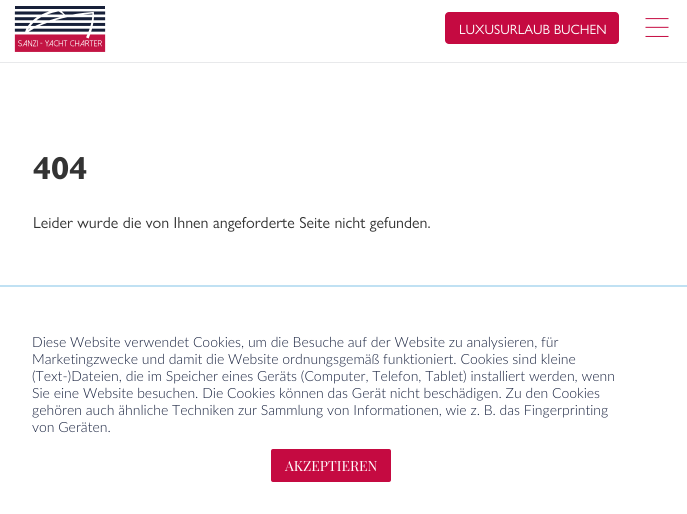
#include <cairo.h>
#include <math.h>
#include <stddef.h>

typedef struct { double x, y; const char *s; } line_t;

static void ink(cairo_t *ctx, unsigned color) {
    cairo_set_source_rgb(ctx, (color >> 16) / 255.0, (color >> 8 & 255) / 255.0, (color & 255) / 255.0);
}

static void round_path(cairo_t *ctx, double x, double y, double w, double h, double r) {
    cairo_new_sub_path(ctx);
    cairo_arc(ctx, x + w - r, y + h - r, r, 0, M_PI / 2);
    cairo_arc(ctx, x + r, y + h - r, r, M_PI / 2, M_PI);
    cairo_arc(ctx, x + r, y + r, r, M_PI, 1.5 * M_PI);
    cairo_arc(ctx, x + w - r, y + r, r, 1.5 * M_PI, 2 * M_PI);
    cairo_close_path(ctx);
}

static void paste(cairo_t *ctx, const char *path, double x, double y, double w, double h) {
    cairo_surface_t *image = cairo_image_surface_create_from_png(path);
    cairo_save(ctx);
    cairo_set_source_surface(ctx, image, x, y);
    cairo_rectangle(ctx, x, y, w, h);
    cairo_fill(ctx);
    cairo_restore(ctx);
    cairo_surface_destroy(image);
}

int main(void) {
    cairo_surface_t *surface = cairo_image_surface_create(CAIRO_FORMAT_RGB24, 687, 514);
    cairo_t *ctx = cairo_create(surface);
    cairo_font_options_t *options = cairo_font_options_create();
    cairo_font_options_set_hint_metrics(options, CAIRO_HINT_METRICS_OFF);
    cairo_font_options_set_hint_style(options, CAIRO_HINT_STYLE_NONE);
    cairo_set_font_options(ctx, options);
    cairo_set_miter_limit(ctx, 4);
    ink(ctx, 0xFFFFFF);
    cairo_paint(ctx);
    paste(ctx, "media/1.png", 14, 6, 92, 46);
    ink(ctx, 0xC50A41);
    round_path(ctx, 445, 12, 174, 32, 4);
    cairo_fill(ctx);
    cairo_select_font_face(ctx, "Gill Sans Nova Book", CAIRO_FONT_SLANT_NORMAL, CAIRO_FONT_WEIGHT_NORMAL);
    cairo_set_font_size(ctx, 13.5);
    ink(ctx, 0xFFFFFF);
    cairo_move_to(ctx, 459, 34);
    cairo_show_text(ctx, "LUXUSURLAUB BUCHEN");
    paste(ctx, "media/2.png", 645, 18, 24, 19);
    ink(ctx, 0xE8E9EB);
    cairo_rectangle(ctx, 0, 62, 687, 1);
    cairo_fill(ctx);
    cairo_select_font_face(ctx, "Gill Sans Nova Book", CAIRO_FONT_SLANT_NORMAL, CAIRO_FONT_WEIGHT_BOLD);
    cairo_set_font_size(ctx, 32);
    ink(ctx, 0x333333);
    cairo_move_to(ctx, 33, 179);
    cairo_show_text(ctx, "404");
    cairo_select_font_face(ctx, "Gill Sans Nova Book", CAIRO_FONT_SLANT_NORMAL, CAIRO_FONT_WEIGHT_NORMAL);
    cairo_set_font_size(ctx, 16);
    cairo_move_to(ctx, 33, 228);
    cairo_show_text(ctx, "Leider wurde die von Ihnen angeforderte Seite nicht gefunden.");
    ink(ctx, 0xC0E1F3);
    cairo_rectangle(ctx, 0, 285, 687, 2);
    cairo_fill(ctx);
    cairo_select_font_face(ctx, "Lato Light", CAIRO_FONT_SLANT_NORMAL, CAIRO_FONT_WEIGHT_NORMAL);
    cairo_set_font_size(ctx, 14);
    ink(ctx, 0x141E3B);
    {
        static const line_t items[] = {
            {32, 347, "Diese Website verwendet Cookies, um die Besuche auf der Website zu analysieren, für"},
            {32, 364, "Marketingzwecke und damit die Website ordnungsgemäß funktioniert. Cookies sind kleine"},
            {32, 381, "(Text-)Dateien, die im Speicher eines Geräts (Computer, Telefon, Tablet) installiert werden, wenn"},
            {32, 398, "Sie eine Website besuchen. Die Cookies können das Gerät nicht beschädigen. Zu den Cookies"},
            {32, 415, "gehören auch ähnliche Techniken zur Sammlung von Informationen, wie z. B. das Fingerprinting"},
            {32, 432, "von Geräten."},
        };
        for (size_t i = 0; i < sizeof items / sizeof *items; i++) {
            cairo_move_to(ctx, items[i].x, items[i].y);
            cairo_show_text(ctx, items[i].s);
        }
    }
    ink(ctx, 0xC50A41);
    round_path(ctx, 271, 449, 120, 33, 2);
    cairo_fill(ctx);
    cairo_select_font_face(ctx, "Playfair Display", CAIRO_FONT_SLANT_NORMAL, CAIRO_FONT_WEIGHT_NORMAL);
    ink(ctx, 0xFFFFFF);
    cairo_move_to(ctx, 285, 471);
    cairo_show_text(ctx, "AKZEPTIEREN");
    cairo_surface_write_to_png(surface, "image.png");
    cairo_font_options_destroy(options);
    cairo_destroy(ctx);
    cairo_surface_destroy(surface);
    return 0;
}
